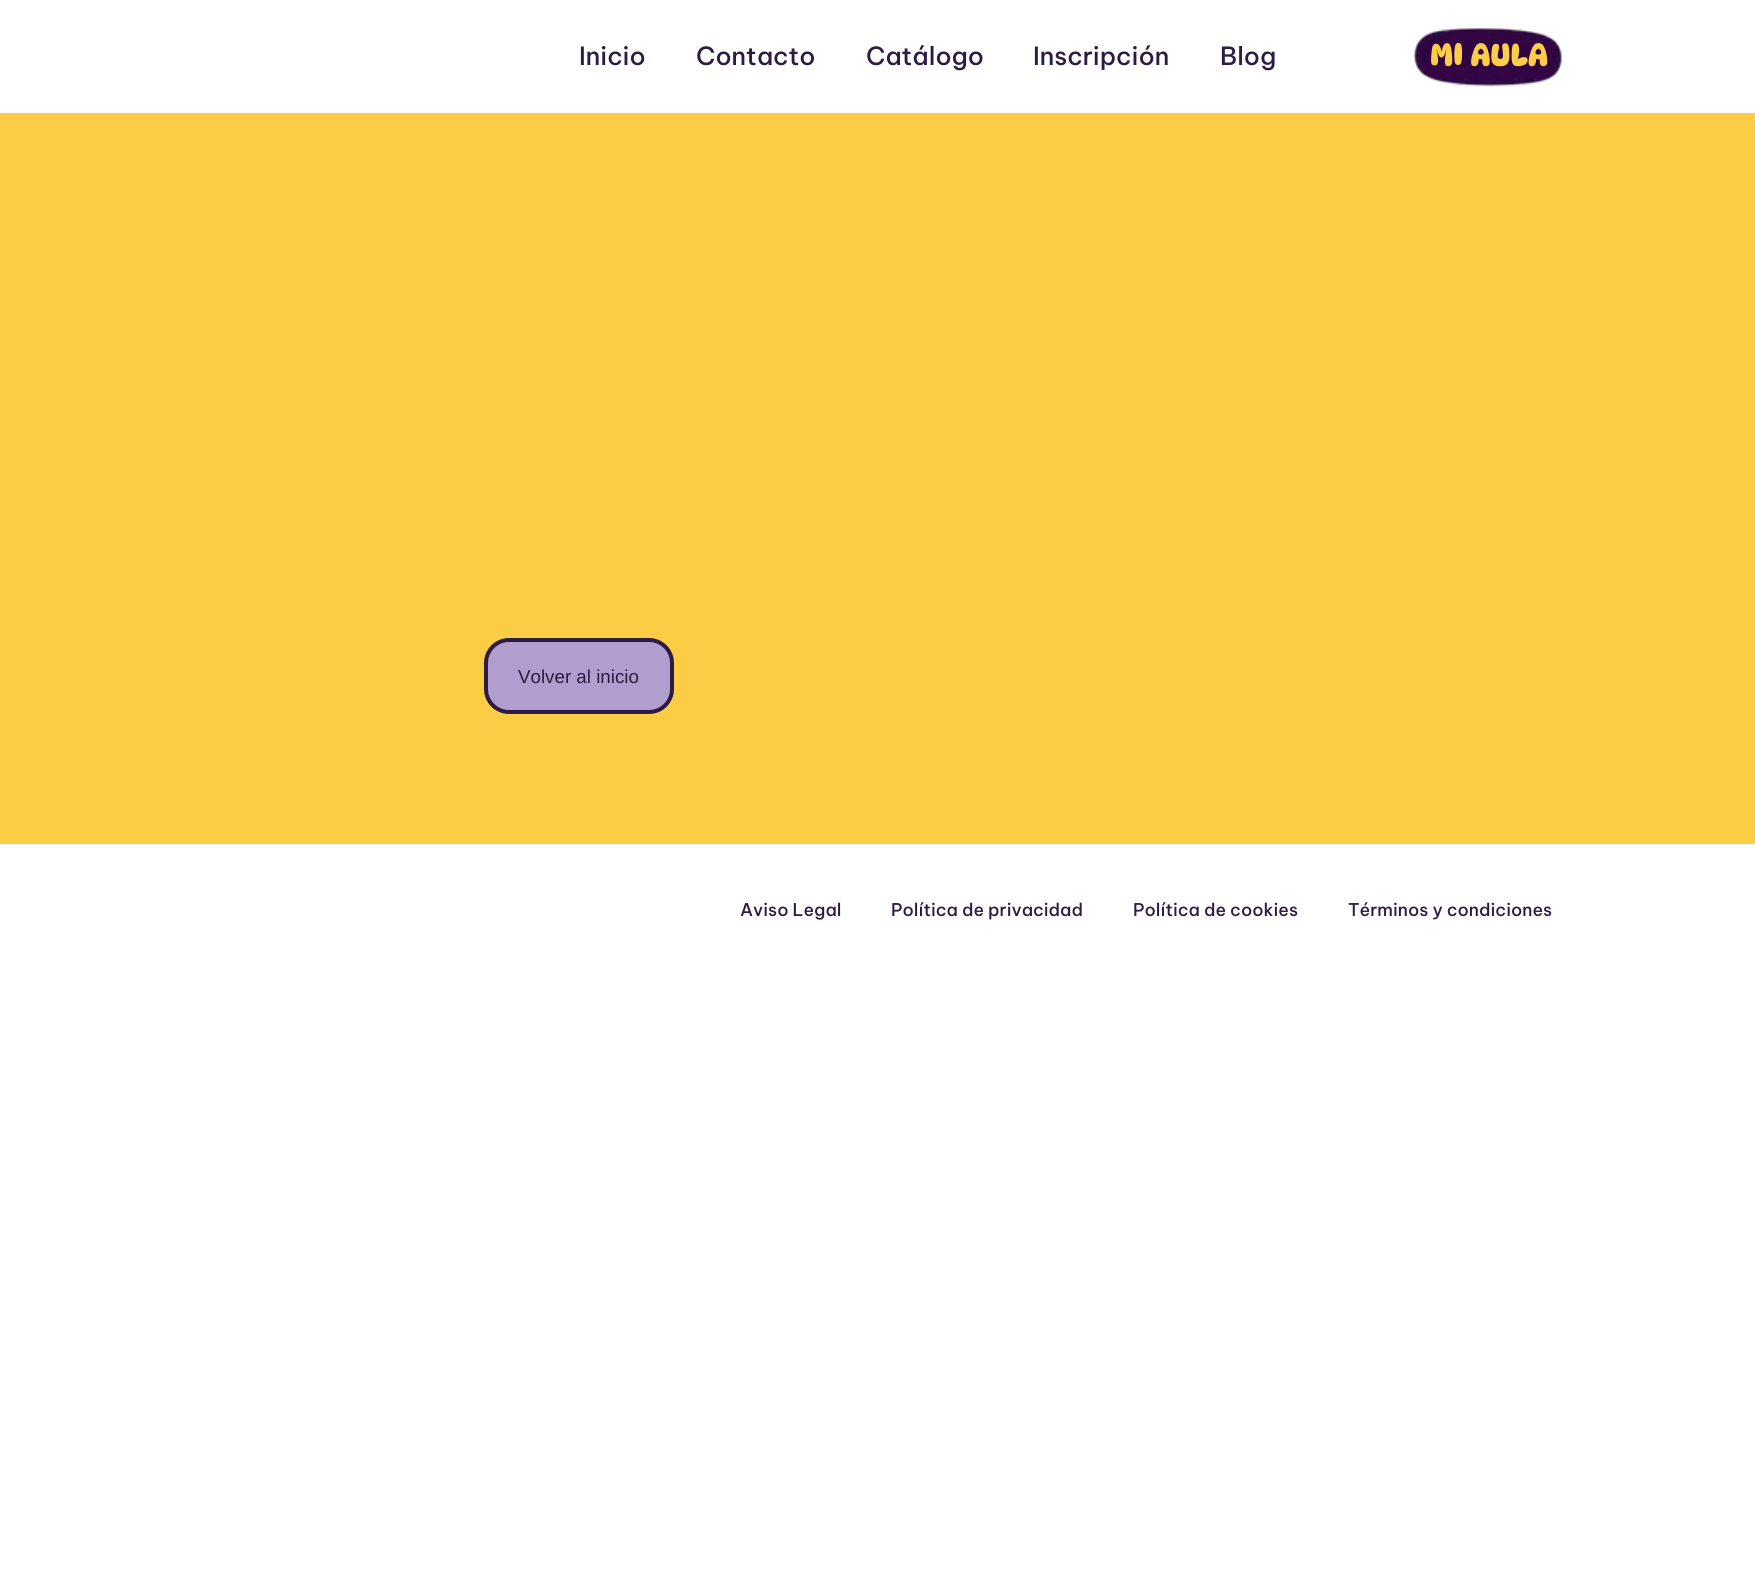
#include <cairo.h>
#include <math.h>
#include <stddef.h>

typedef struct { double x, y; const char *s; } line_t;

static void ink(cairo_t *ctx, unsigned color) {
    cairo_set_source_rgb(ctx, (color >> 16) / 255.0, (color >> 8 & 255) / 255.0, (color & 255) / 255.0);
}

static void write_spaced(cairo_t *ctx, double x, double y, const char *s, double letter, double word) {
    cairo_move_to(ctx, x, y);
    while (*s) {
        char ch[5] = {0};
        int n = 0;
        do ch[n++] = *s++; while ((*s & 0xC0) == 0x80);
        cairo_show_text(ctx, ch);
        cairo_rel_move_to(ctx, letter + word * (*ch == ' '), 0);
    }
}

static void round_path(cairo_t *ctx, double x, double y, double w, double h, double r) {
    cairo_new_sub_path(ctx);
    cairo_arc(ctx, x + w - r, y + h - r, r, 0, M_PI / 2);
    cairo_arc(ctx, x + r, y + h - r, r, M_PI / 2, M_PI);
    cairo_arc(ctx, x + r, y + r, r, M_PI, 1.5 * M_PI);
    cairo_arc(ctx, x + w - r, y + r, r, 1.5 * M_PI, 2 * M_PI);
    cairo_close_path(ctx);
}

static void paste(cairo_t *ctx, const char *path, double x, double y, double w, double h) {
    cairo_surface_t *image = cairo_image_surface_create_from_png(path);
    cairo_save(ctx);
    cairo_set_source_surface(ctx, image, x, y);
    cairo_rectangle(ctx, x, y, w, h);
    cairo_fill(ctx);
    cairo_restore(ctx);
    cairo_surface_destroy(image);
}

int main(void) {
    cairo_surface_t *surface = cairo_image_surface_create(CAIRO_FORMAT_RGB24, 1755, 1572);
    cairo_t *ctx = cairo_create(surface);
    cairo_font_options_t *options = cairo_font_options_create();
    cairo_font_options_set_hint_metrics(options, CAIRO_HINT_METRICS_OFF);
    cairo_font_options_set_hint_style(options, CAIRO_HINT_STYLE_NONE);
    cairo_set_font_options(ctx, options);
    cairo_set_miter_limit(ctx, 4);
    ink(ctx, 0xFFFFFF);
    cairo_paint(ctx);
    cairo_select_font_face(ctx, "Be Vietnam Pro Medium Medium", CAIRO_FONT_SLANT_NORMAL, CAIRO_FONT_WEIGHT_NORMAL);
    cairo_set_font_size(ctx, 25);
    ink(ctx, 0x2D1B43);
    {
        static const line_t items[] = {
            {579, 65, "Inicio"},
            {696, 65, "Contacto"},
            {866, 65, "Catálogo"},
            {1033, 65, "Inscripción"},
            {1220, 65, "Blog"},
        };
        for (size_t i = 0; i < sizeof items / sizeof *items; i++) {
            cairo_move_to(ctx, items[i].x, items[i].y);
            cairo_show_text(ctx, items[i].s);
        }
    }
    paste(ctx, "media/1.png", 1413, 28, 150, 59);
    cairo_select_font_face(ctx, "DynaPuff SemiBold", CAIRO_FONT_SLANT_NORMAL, CAIRO_FONT_WEIGHT_NORMAL);
    cairo_set_font_size(ctx, 31);
    ink(ctx, 0xFBCD48);
    write_spaced(ctx, 1430, 66, "MI AULA", 0, 1);
    ink(ctx, 0xFBCD45);
    cairo_rectangle(ctx, 0, 113, 1755, 731);
    cairo_fill(ctx);
    ink(ctx, 0xB19DCE);
    round_path(ctx, 486, 640, 186, 72, 23);
    cairo_fill_preserve(ctx);
    ink(ctx, 0x2D1B43);
    cairo_set_line_width(ctx, 4);
    cairo_stroke(ctx);
    cairo_select_font_face(ctx, "Liberation Sans", CAIRO_FONT_SLANT_NORMAL, CAIRO_FONT_WEIGHT_NORMAL);
    cairo_set_font_size(ctx, 18.75);
    cairo_move_to(ctx, 518, 683);
    cairo_show_text(ctx, "Volver al inicio");
    cairo_select_font_face(ctx, "Be Vietnam Pro Medium Medium", CAIRO_FONT_SLANT_NORMAL, CAIRO_FONT_WEIGHT_NORMAL);
    cairo_set_font_size(ctx, 17.5);
    {
        static const line_t items[] = {
            {740, 916, "Aviso Legal"},
            {891, 916, "Política de privacidad"},
            {1133, 916, "Política de cookies"},
            {1348, 916, "Términos y condiciones"},
        };
        for (size_t i = 0; i < sizeof items / sizeof *items; i++) {
            cairo_move_to(ctx, items[i].x, items[i].y);
            cairo_show_text(ctx, items[i].s);
        }
    }
    cairo_surface_write_to_png(surface, "image.png");
    cairo_font_options_destroy(options);
    cairo_destroy(ctx);
    cairo_surface_destroy(surface);
    return 0;
}
